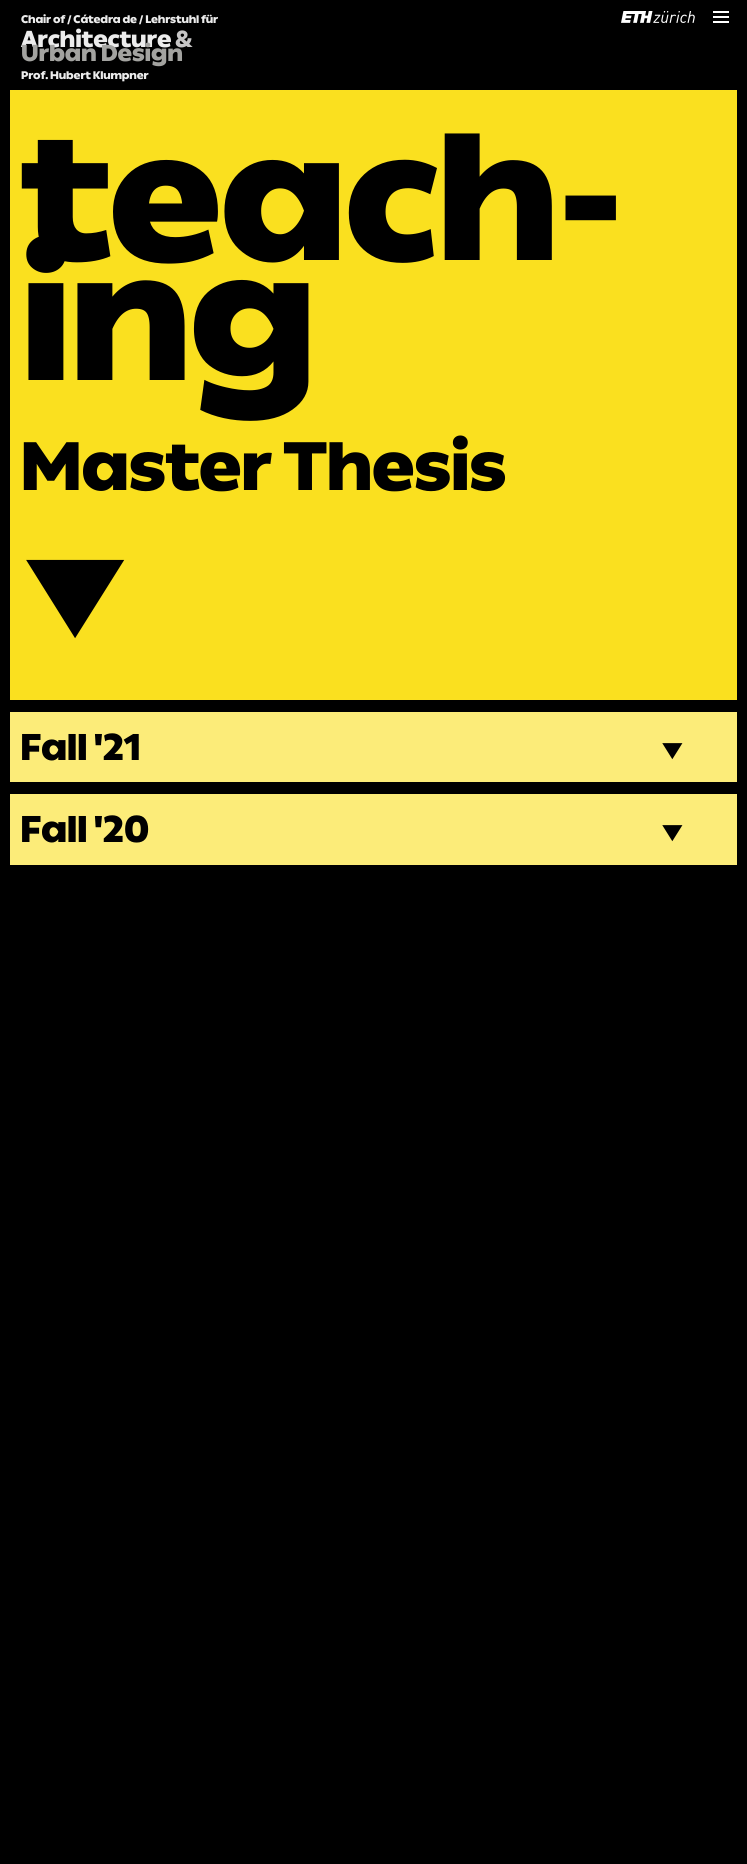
#include <cairo.h>
#include <math.h>
#include <stddef.h>

typedef struct { double x, y; const char *s; } line_t;
typedef struct { double x, y, w, h; unsigned color; } box_t;

static void ink(cairo_t *ctx, unsigned color) {
    cairo_set_source_rgb(ctx, (color >> 16) / 255.0, (color >> 8 & 255) / 255.0, (color & 255) / 255.0);
}

static void write_spaced(cairo_t *ctx, double x, double y, const char *s, double letter, double word) {
    cairo_move_to(ctx, x, y);
    while (*s) {
        char ch[5] = {0};
        int n = 0;
        do ch[n++] = *s++; while ((*s & 0xC0) == 0x80);
        cairo_show_text(ctx, ch);
        cairo_rel_move_to(ctx, letter + word * (*ch == ' '), 0);
    }
}

static void paste(cairo_t *ctx, const char *path, double x, double y, double w, double h) {
    cairo_surface_t *image = cairo_image_surface_create_from_png(path);
    cairo_save(ctx);
    cairo_set_source_surface(ctx, image, x, y);
    cairo_rectangle(ctx, x, y, w, h);
    cairo_fill(ctx);
    cairo_restore(ctx);
    cairo_surface_destroy(image);
}

int main(void) {
    cairo_surface_t *surface = cairo_image_surface_create(CAIRO_FORMAT_RGB24, 747, 1864);
    cairo_t *ctx = cairo_create(surface);
    cairo_font_options_t *options = cairo_font_options_create();
    cairo_font_options_set_hint_metrics(options, CAIRO_HINT_METRICS_OFF);
    cairo_font_options_set_hint_style(options, CAIRO_HINT_STYLE_NONE);
    cairo_set_font_options(ctx, options);
    cairo_set_miter_limit(ctx, 4);
    ink(ctx, 0x000000);
    cairo_paint(ctx);
    cairo_select_font_face(ctx, "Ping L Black", CAIRO_FONT_SLANT_NORMAL, CAIRO_FONT_WEIGHT_NORMAL);
    cairo_set_font_size(ctx, 11);
    ink(ctx, 0xECECEC);
    write_spaced(ctx, 21, 23, "Chair of / Cátedra de / Lehrstuhl für", -0.15, 0);
    cairo_set_font_size(ctx, 23);
    write_spaced(ctx, 21, 47, "Architecture", -0.15, 0);
    ink(ctx, 0xC6C5C5);
    write_spaced(ctx, 175, 47, "&", -0.15, 0);
    ink(ctx, 0xA3A3A0);
    write_spaced(ctx, 21, 61, "Urban Design", -0.15, 0);
    cairo_set_font_size(ctx, 11);
    ink(ctx, 0xECECEC);
    write_spaced(ctx, 21, 79, "Prof. Hubert Klumpner", -0.15, 0);
    paste(ctx, "media/1.png", 621, 11, 74, 12);
    {
        static const box_t items[] = {
            {713, 21, 16, 2, 0xFFFFFF},
            {713, 16, 16, 2, 0xFFFFFF},
            {713, 11, 16, 2, 0xFFFFFF},
            {10, 90, 727, 610, 0xFAE01F},
        };
        for (size_t i = 0; i < sizeof items / sizeof *items; i++) {
            ink(ctx, items[i].color);
            cairo_rectangle(ctx, items[i].x, items[i].y, items[i].w, items[i].h);
            cairo_fill(ctx);
        }
    }
    cairo_set_font_size(ctx, 180);
    ink(ctx, 0x000000);
    write_spaced(ctx, 20, 260, "teach-", -2.75, 0);
    write_spaced(ctx, 20, 380, "ing", -2.75, 0);
    cairo_set_font_size(ctx, 68);
    write_spaced(ctx, 20, 490, "Master Thesis", -1, 0);
    cairo_set_font_size(ctx, 180);
    write_spaced(ctx, 20, 642, "▼", -2.75, 0);
    ink(ctx, 0xFCEC79);
    cairo_rectangle(ctx, 10, 712, 727, 153);
    cairo_fill(ctx);
    ink(ctx, 0x000000);
    cairo_rectangle(ctx, 10, 782, 727, 12);
    cairo_fill(ctx);
    cairo_set_font_size(ctx, 37);
    {
        static const line_t items[] = {
            {20, 760, "Fall '21"},
            {661, 760, "▼"},
            {20, 842, "Fall '20"},
            {661, 842, "▼"},
        };
        for (size_t i = 0; i < sizeof items / sizeof *items; i++) {
            write_spaced(ctx, items[i].x, items[i].y, items[i].s, -0.5, 0);
        }
    }
    cairo_surface_write_to_png(surface, "image.png");
    cairo_font_options_destroy(options);
    cairo_destroy(ctx);
    cairo_surface_destroy(surface);
    return 0;
}
